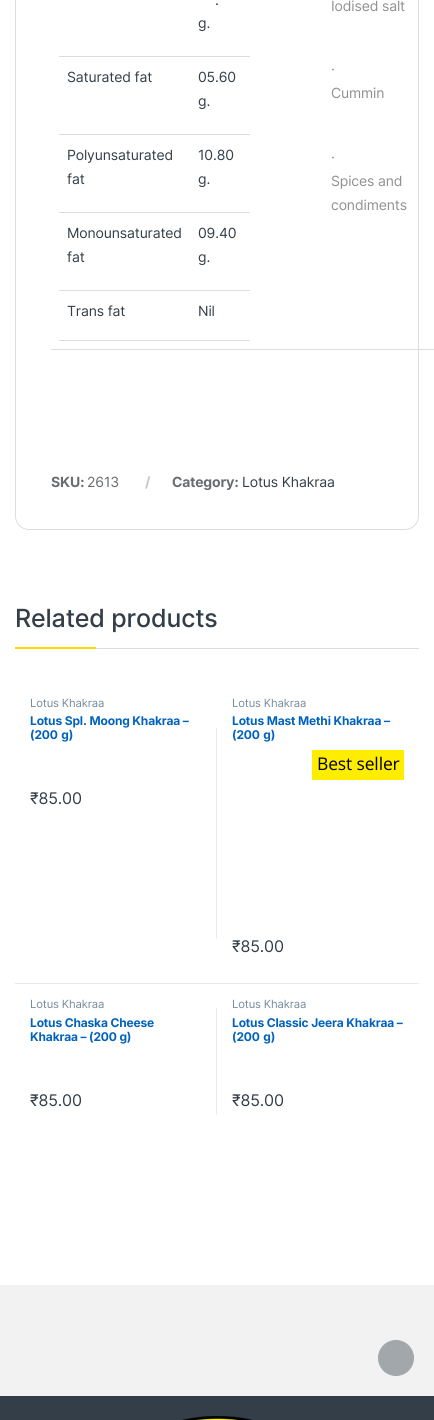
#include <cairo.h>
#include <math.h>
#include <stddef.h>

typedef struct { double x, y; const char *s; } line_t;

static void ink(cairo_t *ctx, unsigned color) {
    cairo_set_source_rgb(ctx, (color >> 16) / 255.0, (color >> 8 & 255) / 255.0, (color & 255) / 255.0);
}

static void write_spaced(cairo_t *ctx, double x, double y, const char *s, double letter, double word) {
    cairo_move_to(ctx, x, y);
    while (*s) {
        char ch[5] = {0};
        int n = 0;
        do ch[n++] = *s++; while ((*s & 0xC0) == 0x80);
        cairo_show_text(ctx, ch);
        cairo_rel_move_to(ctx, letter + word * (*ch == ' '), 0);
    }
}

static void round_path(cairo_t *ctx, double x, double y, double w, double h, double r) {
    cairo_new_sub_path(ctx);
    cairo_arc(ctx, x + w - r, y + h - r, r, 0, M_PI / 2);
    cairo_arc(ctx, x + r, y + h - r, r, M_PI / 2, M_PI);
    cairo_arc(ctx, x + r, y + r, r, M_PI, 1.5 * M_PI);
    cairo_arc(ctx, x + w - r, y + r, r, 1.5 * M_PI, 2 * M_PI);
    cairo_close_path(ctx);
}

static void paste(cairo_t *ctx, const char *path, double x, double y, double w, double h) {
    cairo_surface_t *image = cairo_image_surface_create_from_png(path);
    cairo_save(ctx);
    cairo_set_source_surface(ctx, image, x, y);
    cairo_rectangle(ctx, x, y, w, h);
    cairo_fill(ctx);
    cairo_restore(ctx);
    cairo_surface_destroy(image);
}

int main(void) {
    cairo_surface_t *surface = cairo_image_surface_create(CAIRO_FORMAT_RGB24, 434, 1420);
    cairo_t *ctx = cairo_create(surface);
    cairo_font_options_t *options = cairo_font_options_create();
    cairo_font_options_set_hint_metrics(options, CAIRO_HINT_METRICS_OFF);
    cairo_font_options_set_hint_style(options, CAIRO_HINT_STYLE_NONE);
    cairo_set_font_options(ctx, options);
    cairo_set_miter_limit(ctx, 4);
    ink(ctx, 0xFFFFFF);
    cairo_paint(ctx);
    round_path(ctx, 15.5, -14.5, 403, 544, 13.5);
    ink(ctx, 0xDDDDDD);
    cairo_set_line_width(ctx, 1);
    cairo_stroke(ctx);
    cairo_rectangle(ctx, 59, 56, 191, 1);
    cairo_fill(ctx);
    cairo_select_font_face(ctx, "Inter", CAIRO_FONT_SLANT_NORMAL, CAIRO_FONT_WEIGHT_NORMAL);
    cairo_set_font_size(ctx, 14);
    ink(ctx, 0x333E48);
    {
        static const line_t items[] = {
            {215, 5, "."},
            {198, 28, "g."},
            {67, 82, "Saturated fat"},
        };
        for (size_t i = 0; i < sizeof items / sizeof *items; i++) {
            write_spaced(ctx, items[i].x, items[i].y, items[i].s, -0.15, 0);
        }
    }
    ink(ctx, 0xDDDDDD);
    cairo_rectangle(ctx, 59, 134, 191, 1);
    cairo_fill(ctx);
    ink(ctx, 0x333E48);
    {
        static const line_t items[] = {
            {198, 82, "05.60"},
            {198, 106, "g."},
            {67, 160, "Polyunsaturated"},
            {67, 184, "fat"},
        };
        for (size_t i = 0; i < sizeof items / sizeof *items; i++) {
            write_spaced(ctx, items[i].x, items[i].y, items[i].s, -0.15, 0);
        }
    }
    ink(ctx, 0xDDDDDD);
    cairo_rectangle(ctx, 59, 212, 191, 1);
    cairo_fill(ctx);
    ink(ctx, 0x333E48);
    {
        static const line_t items[] = {
            {198, 160, "10.80"},
            {198, 184, "g."},
            {67, 238, "Monounsaturated"},
            {67, 262, "fat"},
        };
        for (size_t i = 0; i < sizeof items / sizeof *items; i++) {
            write_spaced(ctx, items[i].x, items[i].y, items[i].s, -0.15, 0);
        }
    }
    ink(ctx, 0xDDDDDD);
    cairo_rectangle(ctx, 59, 290, 191, 1);
    cairo_fill(ctx);
    ink(ctx, 0x333E48);
    {
        static const line_t items[] = {
            {198, 238, "09.40"},
            {198, 262, "g."},
            {67, 316, "Trans fat"},
        };
        for (size_t i = 0; i < sizeof items / sizeof *items; i++) {
            write_spaced(ctx, items[i].x, items[i].y, items[i].s, -0.15, 0);
        }
    }
    ink(ctx, 0xDDDDDD);
    cairo_rectangle(ctx, 59, 340, 191, 1);
    cairo_fill(ctx);
    ink(ctx, 0x333E48);
    write_spaced(ctx, 198, 316, "Nil", -0.15, 0);
    ink(ctx, 0x919090);
    {
        static const line_t items[] = {
            {331, 11, "Iodised salt"},
            {331, 74, "·"},
            {331, 98, "Cummin"},
            {331, 162, "·"},
            {331, 186, "Spices and"},
            {331, 210, "condiments"},
        };
        for (size_t i = 0; i < sizeof items / sizeof *items; i++) {
            write_spaced(ctx, items[i].x, items[i].y, items[i].s, -0.15, 0);
        }
    }
    ink(ctx, 0xDDDDDD);
    cairo_rectangle(ctx, 51, 349, 383, 1);
    cairo_fill(ctx);
    cairo_select_font_face(ctx, "Inter", CAIRO_FONT_SLANT_NORMAL, CAIRO_FONT_WEIGHT_BOLD);
    ink(ctx, 0x686C6F);
    write_spaced(ctx, 51, 487, "SKU:", -0.15, 0);
    cairo_select_font_face(ctx, "Inter", CAIRO_FONT_SLANT_NORMAL, CAIRO_FONT_WEIGHT_NORMAL);
    write_spaced(ctx, 87, 487, "2613", -0.15, 0);
    cairo_select_font_face(ctx, "Inter", CAIRO_FONT_SLANT_NORMAL, CAIRO_FONT_WEIGHT_BOLD);
    ink(ctx, 0xC5C5C5);
    write_spaced(ctx, 145, 487, "/", -0.15, 0);
    ink(ctx, 0x686C6F);
    write_spaced(ctx, 172, 487, "Category:", -0.15, 0);
    cairo_select_font_face(ctx, "Inter", CAIRO_FONT_SLANT_NORMAL, CAIRO_FONT_WEIGHT_NORMAL);
    ink(ctx, 0x333E48);
    write_spaced(ctx, 242, 487, "Lotus Khakraa", -0.15, 0);
    ink(ctx, 0xDDDDDD);
    cairo_rectangle(ctx, 96, 648, 323, 1);
    cairo_fill(ctx);
    cairo_select_font_face(ctx, "Inter Medium", CAIRO_FONT_SLANT_NORMAL, CAIRO_FONT_WEIGHT_NORMAL);
    cairo_set_font_size(ctx, 25);
    ink(ctx, 0x333E48);
    write_spaced(ctx, 15, 627, "Related products", -0.15, 0);
    ink(ctx, 0xFED700);
    cairo_rectangle(ctx, 15, 647, 81, 2);
    cairo_fill(ctx);
    ink(ctx, 0xEAEAEA);
    cairo_rectangle(ctx, 15, 983, 404, 1);
    cairo_fill(ctx);
    cairo_select_font_face(ctx, "Inter", CAIRO_FONT_SLANT_NORMAL, CAIRO_FONT_WEIGHT_NORMAL);
    cairo_set_font_size(ctx, 11.25);
    ink(ctx, 0x768B9E);
    write_spaced(ctx, 30, 707, "Lotus Khakraa", -0.15, 0);
    cairo_select_font_face(ctx, "Inter", CAIRO_FONT_SLANT_NORMAL, CAIRO_FONT_WEIGHT_BOLD);
    cairo_set_font_size(ctx, 12);
    ink(ctx, 0x0062BD);
    write_spaced(ctx, 30, 725, "Lotus Spl. Moong Khakraa –", -0.15, 0);
    write_spaced(ctx, 30, 739, "(200 g)", -0.15, 1);
    cairo_select_font_face(ctx, "Inter", CAIRO_FONT_SLANT_NORMAL, CAIRO_FONT_WEIGHT_NORMAL);
    cairo_set_font_size(ctx, 16);
    ink(ctx, 0x333E48);
    write_spaced(ctx, 30, 804, "₹85.00", -0.15, 0);
    ink(ctx, 0xEAEAEA);
    cairo_rectangle(ctx, 216, 728, 1, 211);
    cairo_fill(ctx);
    cairo_set_font_size(ctx, 11.25);
    ink(ctx, 0x768B9E);
    write_spaced(ctx, 232, 707, "Lotus Khakraa", -0.15, 0);
    cairo_select_font_face(ctx, "Inter", CAIRO_FONT_SLANT_NORMAL, CAIRO_FONT_WEIGHT_BOLD);
    cairo_set_font_size(ctx, 12);
    ink(ctx, 0x0062BD);
    write_spaced(ctx, 232, 725, "Lotus Mast Methi Khakraa –", -0.15, 0);
    write_spaced(ctx, 232, 739, "(200 g)", -0.15, 1);
    ink(ctx, 0xFFED00);
    cairo_rectangle(ctx, 312, 750, 92, 30);
    cairo_fill(ctx);
    cairo_select_font_face(ctx, "Open Sans", CAIRO_FONT_SLANT_NORMAL, CAIRO_FONT_WEIGHT_NORMAL);
    cairo_set_font_size(ctx, 17.5);
    ink(ctx, 0x000000);
    write_spaced(ctx, 317, 770, "Best seller", -0.15, 0);
    cairo_select_font_face(ctx, "Inter", CAIRO_FONT_SLANT_NORMAL, CAIRO_FONT_WEIGHT_NORMAL);
    cairo_set_font_size(ctx, 16);
    ink(ctx, 0x333E48);
    write_spaced(ctx, 232, 952, "₹85.00", -0.15, 0);
    cairo_set_font_size(ctx, 11.25);
    ink(ctx, 0x768B9E);
    write_spaced(ctx, 30, 1008, "Lotus Khakraa", -0.15, 0);
    cairo_select_font_face(ctx, "Inter", CAIRO_FONT_SLANT_NORMAL, CAIRO_FONT_WEIGHT_BOLD);
    cairo_set_font_size(ctx, 12);
    ink(ctx, 0x0062BD);
    write_spaced(ctx, 30, 1027, "Lotus Chaska Cheese", -0.15, 0);
    write_spaced(ctx, 30, 1041, "Khakraa – (200 g)", -0.15, 0);
    cairo_select_font_face(ctx, "Inter", CAIRO_FONT_SLANT_NORMAL, CAIRO_FONT_WEIGHT_NORMAL);
    cairo_set_font_size(ctx, 16);
    ink(ctx, 0x333E48);
    write_spaced(ctx, 30, 1106, "₹85.00", -0.15, 0);
    ink(ctx, 0xEAEAEA);
    cairo_rectangle(ctx, 216, 1008, 1, 107);
    cairo_fill(ctx);
    cairo_set_font_size(ctx, 11.25);
    ink(ctx, 0x768B9E);
    write_spaced(ctx, 232, 1008, "Lotus Khakraa", -0.15, 0);
    cairo_select_font_face(ctx, "Inter", CAIRO_FONT_SLANT_NORMAL, CAIRO_FONT_WEIGHT_BOLD);
    cairo_set_font_size(ctx, 12);
    ink(ctx, 0x0062BD);
    write_spaced(ctx, 232, 1027, "Lotus Classic Jeera Khakraa –", -0.15, 0);
    write_spaced(ctx, 232, 1041, "(200 g)", -0.15, 1);
    cairo_select_font_face(ctx, "Inter", CAIRO_FONT_SLANT_NORMAL, CAIRO_FONT_WEIGHT_NORMAL);
    cairo_set_font_size(ctx, 16);
    ink(ctx, 0x333E48);
    write_spaced(ctx, 232, 1106, "₹85.00", -0.15, 0);
    ink(ctx, 0xF2F2F2);
    cairo_rectangle(ctx, 0, 1285, 434, 111);
    cairo_fill(ctx);
    ink(ctx, 0x333E48);
    cairo_rectangle(ctx, 0, 1396, 434, 24);
    cairo_fill(ctx);
    paste(ctx, "media/1.png", 182, 1416, 71, 4);
    ink(ctx, 0xA2A7AC);
    cairo_arc(ctx, 396, 1358, 17.5, 0, 2 * M_PI);
    cairo_fill_preserve(ctx);
    cairo_stroke(ctx);
    cairo_surface_write_to_png(surface, "image.png");
    cairo_font_options_destroy(options);
    cairo_destroy(ctx);
    cairo_surface_destroy(surface);
    return 0;
}
